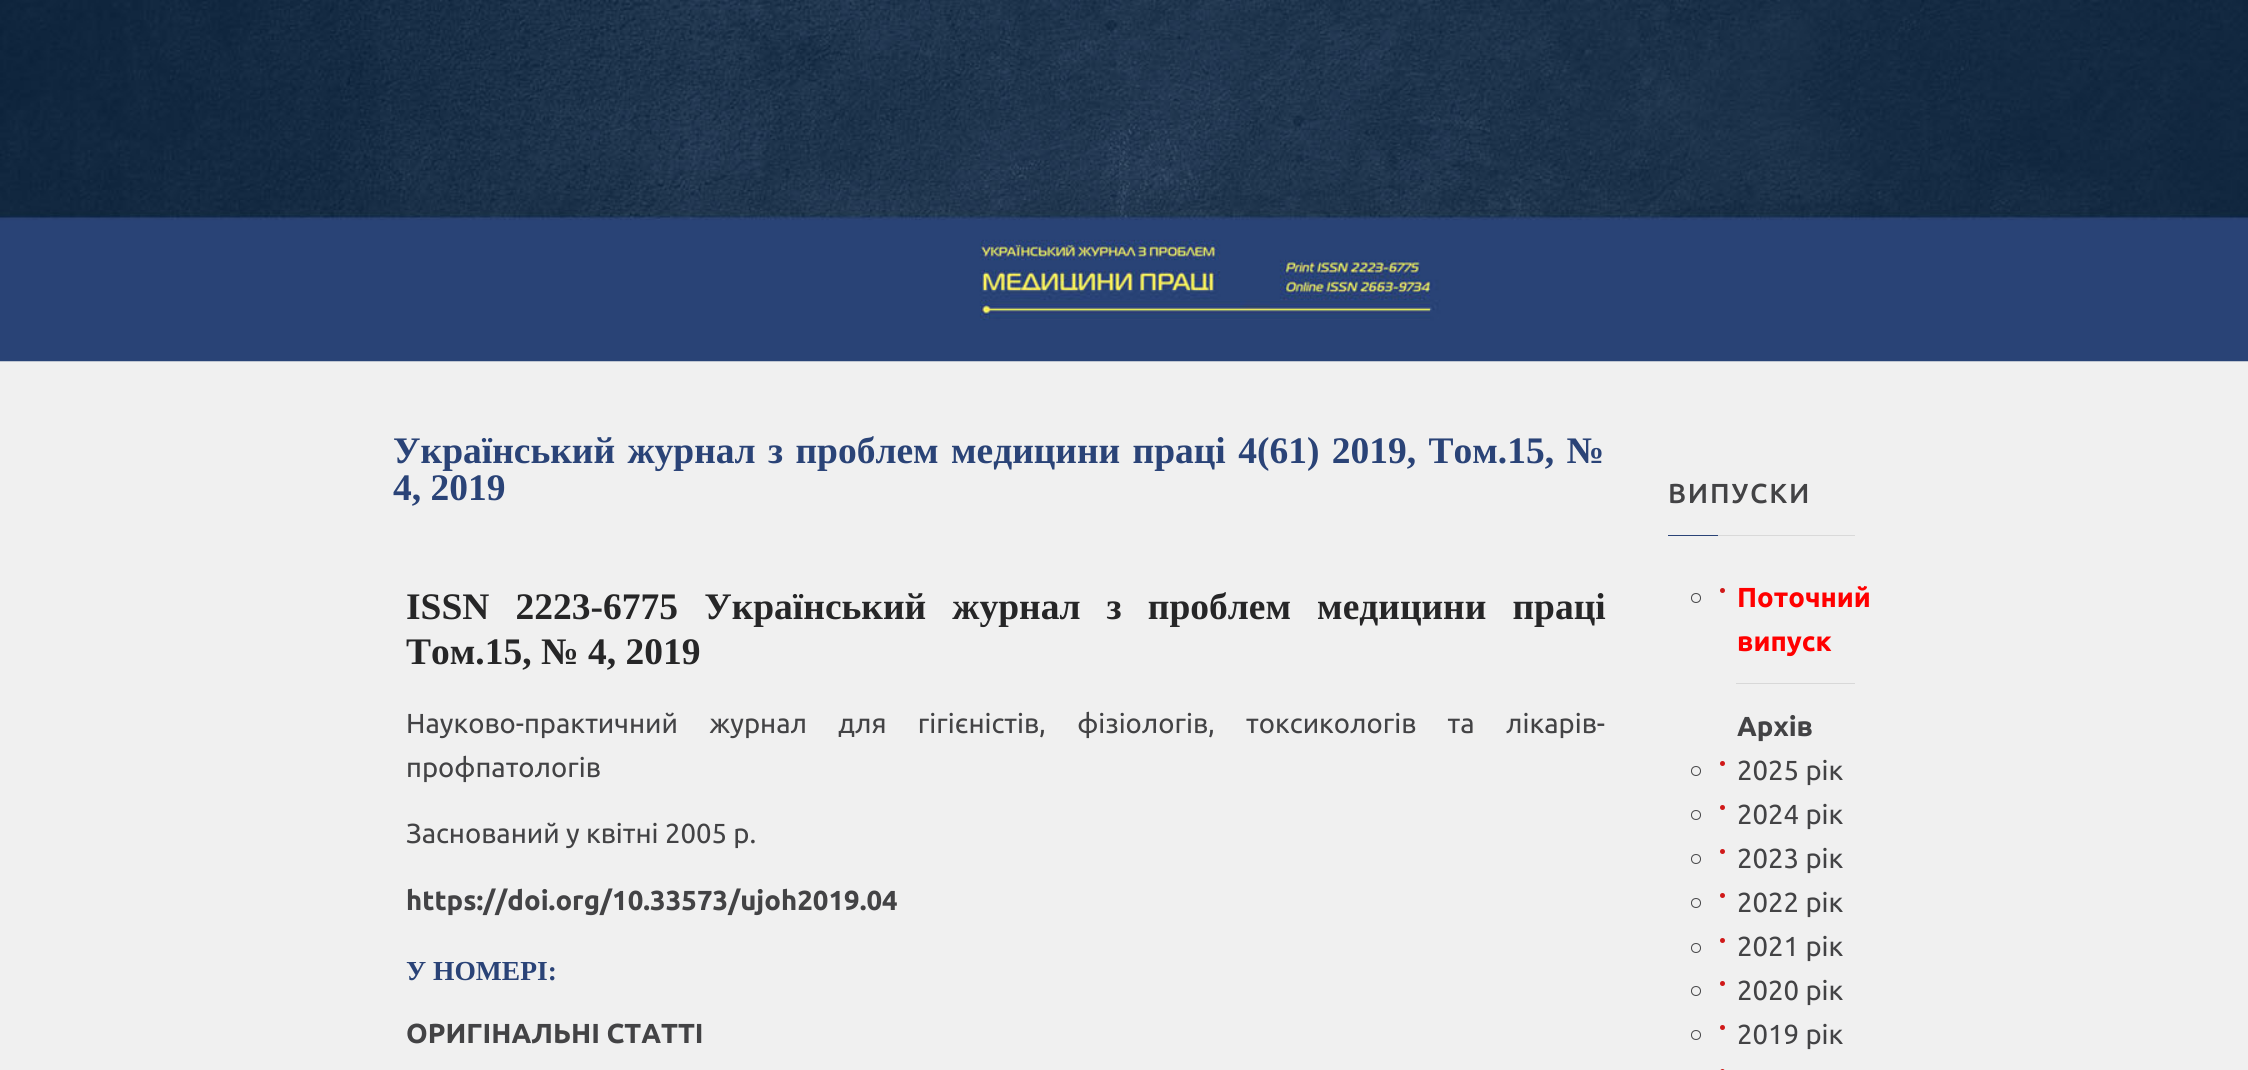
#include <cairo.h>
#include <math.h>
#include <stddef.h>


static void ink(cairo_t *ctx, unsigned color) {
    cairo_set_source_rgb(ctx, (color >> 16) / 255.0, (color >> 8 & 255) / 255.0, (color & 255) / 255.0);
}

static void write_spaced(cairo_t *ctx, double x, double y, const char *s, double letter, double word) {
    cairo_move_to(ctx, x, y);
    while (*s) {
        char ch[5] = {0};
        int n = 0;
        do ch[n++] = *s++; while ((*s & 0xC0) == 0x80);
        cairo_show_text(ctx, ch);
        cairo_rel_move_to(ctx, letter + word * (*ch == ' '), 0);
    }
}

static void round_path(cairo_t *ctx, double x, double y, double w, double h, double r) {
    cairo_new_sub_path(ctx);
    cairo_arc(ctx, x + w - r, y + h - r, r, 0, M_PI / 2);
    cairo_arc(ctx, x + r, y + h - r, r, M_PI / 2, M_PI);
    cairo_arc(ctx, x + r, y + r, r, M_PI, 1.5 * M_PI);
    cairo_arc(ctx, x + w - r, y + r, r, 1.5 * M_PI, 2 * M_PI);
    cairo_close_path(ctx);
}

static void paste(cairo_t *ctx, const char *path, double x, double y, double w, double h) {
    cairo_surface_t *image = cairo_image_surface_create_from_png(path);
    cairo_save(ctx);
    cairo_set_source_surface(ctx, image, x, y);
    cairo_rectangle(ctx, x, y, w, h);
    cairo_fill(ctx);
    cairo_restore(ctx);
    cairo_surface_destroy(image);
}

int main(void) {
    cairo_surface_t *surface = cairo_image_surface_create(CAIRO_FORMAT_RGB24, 2248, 1070);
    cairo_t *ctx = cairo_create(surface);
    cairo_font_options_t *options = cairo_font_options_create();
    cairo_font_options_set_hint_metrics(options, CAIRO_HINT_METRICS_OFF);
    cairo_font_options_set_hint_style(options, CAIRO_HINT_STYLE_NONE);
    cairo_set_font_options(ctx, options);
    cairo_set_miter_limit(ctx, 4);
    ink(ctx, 0xF0F0F0);
    cairo_paint(ctx);
    paste(ctx, "media/1.png", 0, 0, 2248, 362);
    cairo_select_font_face(ctx, "Liberation Serif", CAIRO_FONT_SLANT_NORMAL, CAIRO_FONT_WEIGHT_BOLD);
    cairo_set_font_size(ctx, 37.5);
    ink(ctx, 0x2A4377);
    write_spaced(ctx, 393, 463, "Український журнал з проблем медицини праці 4(61) 2019, Том.15, №", 0, 3);
    cairo_move_to(ctx, 393, 500);
    cairo_show_text(ctx, "4, 2019");
    ink(ctx, 0x262627);
    write_spaced(ctx, 406, 619, "ISSN 2223-6775 Український журнал з проблем медицини праці", 0, 16.75);
    cairo_move_to(ctx, 406, 664);
    cairo_show_text(ctx, "Том.15, № 4, 2019");
    cairo_select_font_face(ctx, "Ubuntu", CAIRO_FONT_SLANT_NORMAL, CAIRO_FONT_WEIGHT_NORMAL);
    cairo_set_font_size(ctx, 27.5);
    ink(ctx, 0x434345);
    write_spaced(ctx, 406, 733, "Науково-практичний журнал для гігієністів, фізіологів, токсикологів та лікарів-", 0, 25);
    cairo_move_to(ctx, 406, 777);
    cairo_show_text(ctx, "профпатологів");
    cairo_move_to(ctx, 406, 843);
    cairo_show_text(ctx, "Заснований у квітні 2005 р.");
    cairo_select_font_face(ctx, "Ubuntu", CAIRO_FONT_SLANT_NORMAL, CAIRO_FONT_WEIGHT_BOLD);
    cairo_move_to(ctx, 406, 910);
    cairo_show_text(ctx, "https://doi.org/10.33573/ujoh2019.04");
    cairo_select_font_face(ctx, "Liberation Serif", CAIRO_FONT_SLANT_NORMAL, CAIRO_FONT_WEIGHT_BOLD);
    ink(ctx, 0x2A4377);
    cairo_move_to(ctx, 406, 980);
    cairo_show_text(ctx, "У НОМЕРІ:");
    cairo_select_font_face(ctx, "Ubuntu", CAIRO_FONT_SLANT_NORMAL, CAIRO_FONT_WEIGHT_BOLD);
    ink(ctx, 0x434345);
    cairo_move_to(ctx, 406, 1043);
    cairo_show_text(ctx, "ОРИГІНАЛЬНІ СТАТТІ");
    cairo_select_font_face(ctx, "Ubuntu Medium", CAIRO_FONT_SLANT_NORMAL, CAIRO_FONT_WEIGHT_NORMAL);
    write_spaced(ctx, 1668, 503, "ВИПУСКИ", 1.75, 0);
    ink(ctx, 0xD9D9D9);
    cairo_rectangle(ctx, 1718, 535, 137, 1);
    cairo_fill(ctx);
    ink(ctx, 0x2A4377);
    cairo_rectangle(ctx, 1668, 535, 50, 1);
    cairo_fill(ctx);
    ink(ctx, 0xD01919);
    cairo_arc(ctx, 1722.5, 590.5, 2.5, 0, 2 * M_PI);
    cairo_fill(ctx);
    cairo_select_font_face(ctx, "Ubuntu", CAIRO_FONT_SLANT_NORMAL, CAIRO_FONT_WEIGHT_BOLD);
    ink(ctx, 0xFF0000);
    cairo_move_to(ctx, 1737, 607);
    cairo_show_text(ctx, "Поточний");
    cairo_new_path(ctx);
    cairo_arc(ctx, 1696, 598, 4.5, 0, 2 * M_PI);
    ink(ctx, 0x434345);
    cairo_set_line_width(ctx, 1);
    cairo_stroke(ctx);
    ink(ctx, 0xFF0000);
    cairo_move_to(ctx, 1737, 651);
    cairo_show_text(ctx, "випуск");
    ink(ctx, 0xD8D8D8);
    cairo_rectangle(ctx, 1736, 683, 119, 1);
    cairo_fill(ctx);
    ink(ctx, 0x434345);
    cairo_move_to(ctx, 1737, 736);
    cairo_show_text(ctx, "Архів");
    ink(ctx, 0xD01919);
    cairo_new_path(ctx);
    cairo_arc(ctx, 1722.5, 763.5, 2.5, 0, 2 * M_PI);
    cairo_fill(ctx);
    cairo_select_font_face(ctx, "Ubuntu", CAIRO_FONT_SLANT_NORMAL, CAIRO_FONT_WEIGHT_NORMAL);
    ink(ctx, 0x434345);
    cairo_move_to(ctx, 1737, 780);
    cairo_show_text(ctx, "2025 рік");
    cairo_new_path(ctx);
    cairo_arc(ctx, 1696, 771, 4.5, 0, 2 * M_PI);
    cairo_stroke(ctx);
    ink(ctx, 0xD01919);
    cairo_arc(ctx, 1722.5, 807.5, 2.5, 0, 2 * M_PI);
    cairo_fill(ctx);
    ink(ctx, 0x434345);
    cairo_move_to(ctx, 1737, 824);
    cairo_show_text(ctx, "2024 рік");
    cairo_new_path(ctx);
    cairo_arc(ctx, 1696, 815, 4.5, 0, 2 * M_PI);
    cairo_stroke(ctx);
    ink(ctx, 0xD01919);
    cairo_arc(ctx, 1722.5, 851.5, 2.5, 0, 2 * M_PI);
    cairo_fill(ctx);
    ink(ctx, 0x434345);
    cairo_move_to(ctx, 1737, 868);
    cairo_show_text(ctx, "2023 рік");
    cairo_new_path(ctx);
    cairo_arc(ctx, 1696, 859, 4.5, 0, 2 * M_PI);
    cairo_stroke(ctx);
    ink(ctx, 0xD01919);
    cairo_arc(ctx, 1722.5, 895.5, 2.5, 0, 2 * M_PI);
    cairo_fill(ctx);
    ink(ctx, 0x434345);
    cairo_move_to(ctx, 1737, 912);
    cairo_show_text(ctx, "2022 рік");
    cairo_new_path(ctx);
    cairo_arc(ctx, 1696, 903, 4.5, 0, 2 * M_PI);
    cairo_stroke(ctx);
    ink(ctx, 0xD01919);
    cairo_arc(ctx, 1722.5, 940.5, 2.5, 0, 2 * M_PI);
    cairo_fill(ctx);
    ink(ctx, 0x434345);
    cairo_move_to(ctx, 1737, 956);
    cairo_show_text(ctx, "2021 рік");
    cairo_new_path(ctx);
    cairo_arc(ctx, 1696, 948, 4.5, 0, 2 * M_PI);
    cairo_stroke(ctx);
    ink(ctx, 0xD01919);
    cairo_arc(ctx, 1722.5, 983.5, 2.5, 0, 2 * M_PI);
    cairo_fill(ctx);
    ink(ctx, 0x434345);
    cairo_move_to(ctx, 1737, 1000);
    cairo_show_text(ctx, "2020 рік");
    cairo_new_path(ctx);
    cairo_arc(ctx, 1696, 991, 4.5, 0, 2 * M_PI);
    cairo_stroke(ctx);
    ink(ctx, 0xD01919);
    cairo_arc(ctx, 1722.5, 1027.5, 2.5, 0, 2 * M_PI);
    cairo_fill(ctx);
    ink(ctx, 0x434345);
    cairo_move_to(ctx, 1737, 1044);
    cairo_show_text(ctx, "2019 рік");
    cairo_new_path(ctx);
    cairo_arc(ctx, 1696, 1035, 4.5, 0, 2 * M_PI);
    cairo_stroke(ctx);
    ink(ctx, 0xD01919);
    round_path(ctx, 1720, 1069, 5, 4, 2.5);
    cairo_fill(ctx);
    cairo_surface_write_to_png(surface, "image.png");
    cairo_font_options_destroy(options);
    cairo_destroy(ctx);
    cairo_surface_destroy(surface);
    return 0;
}
